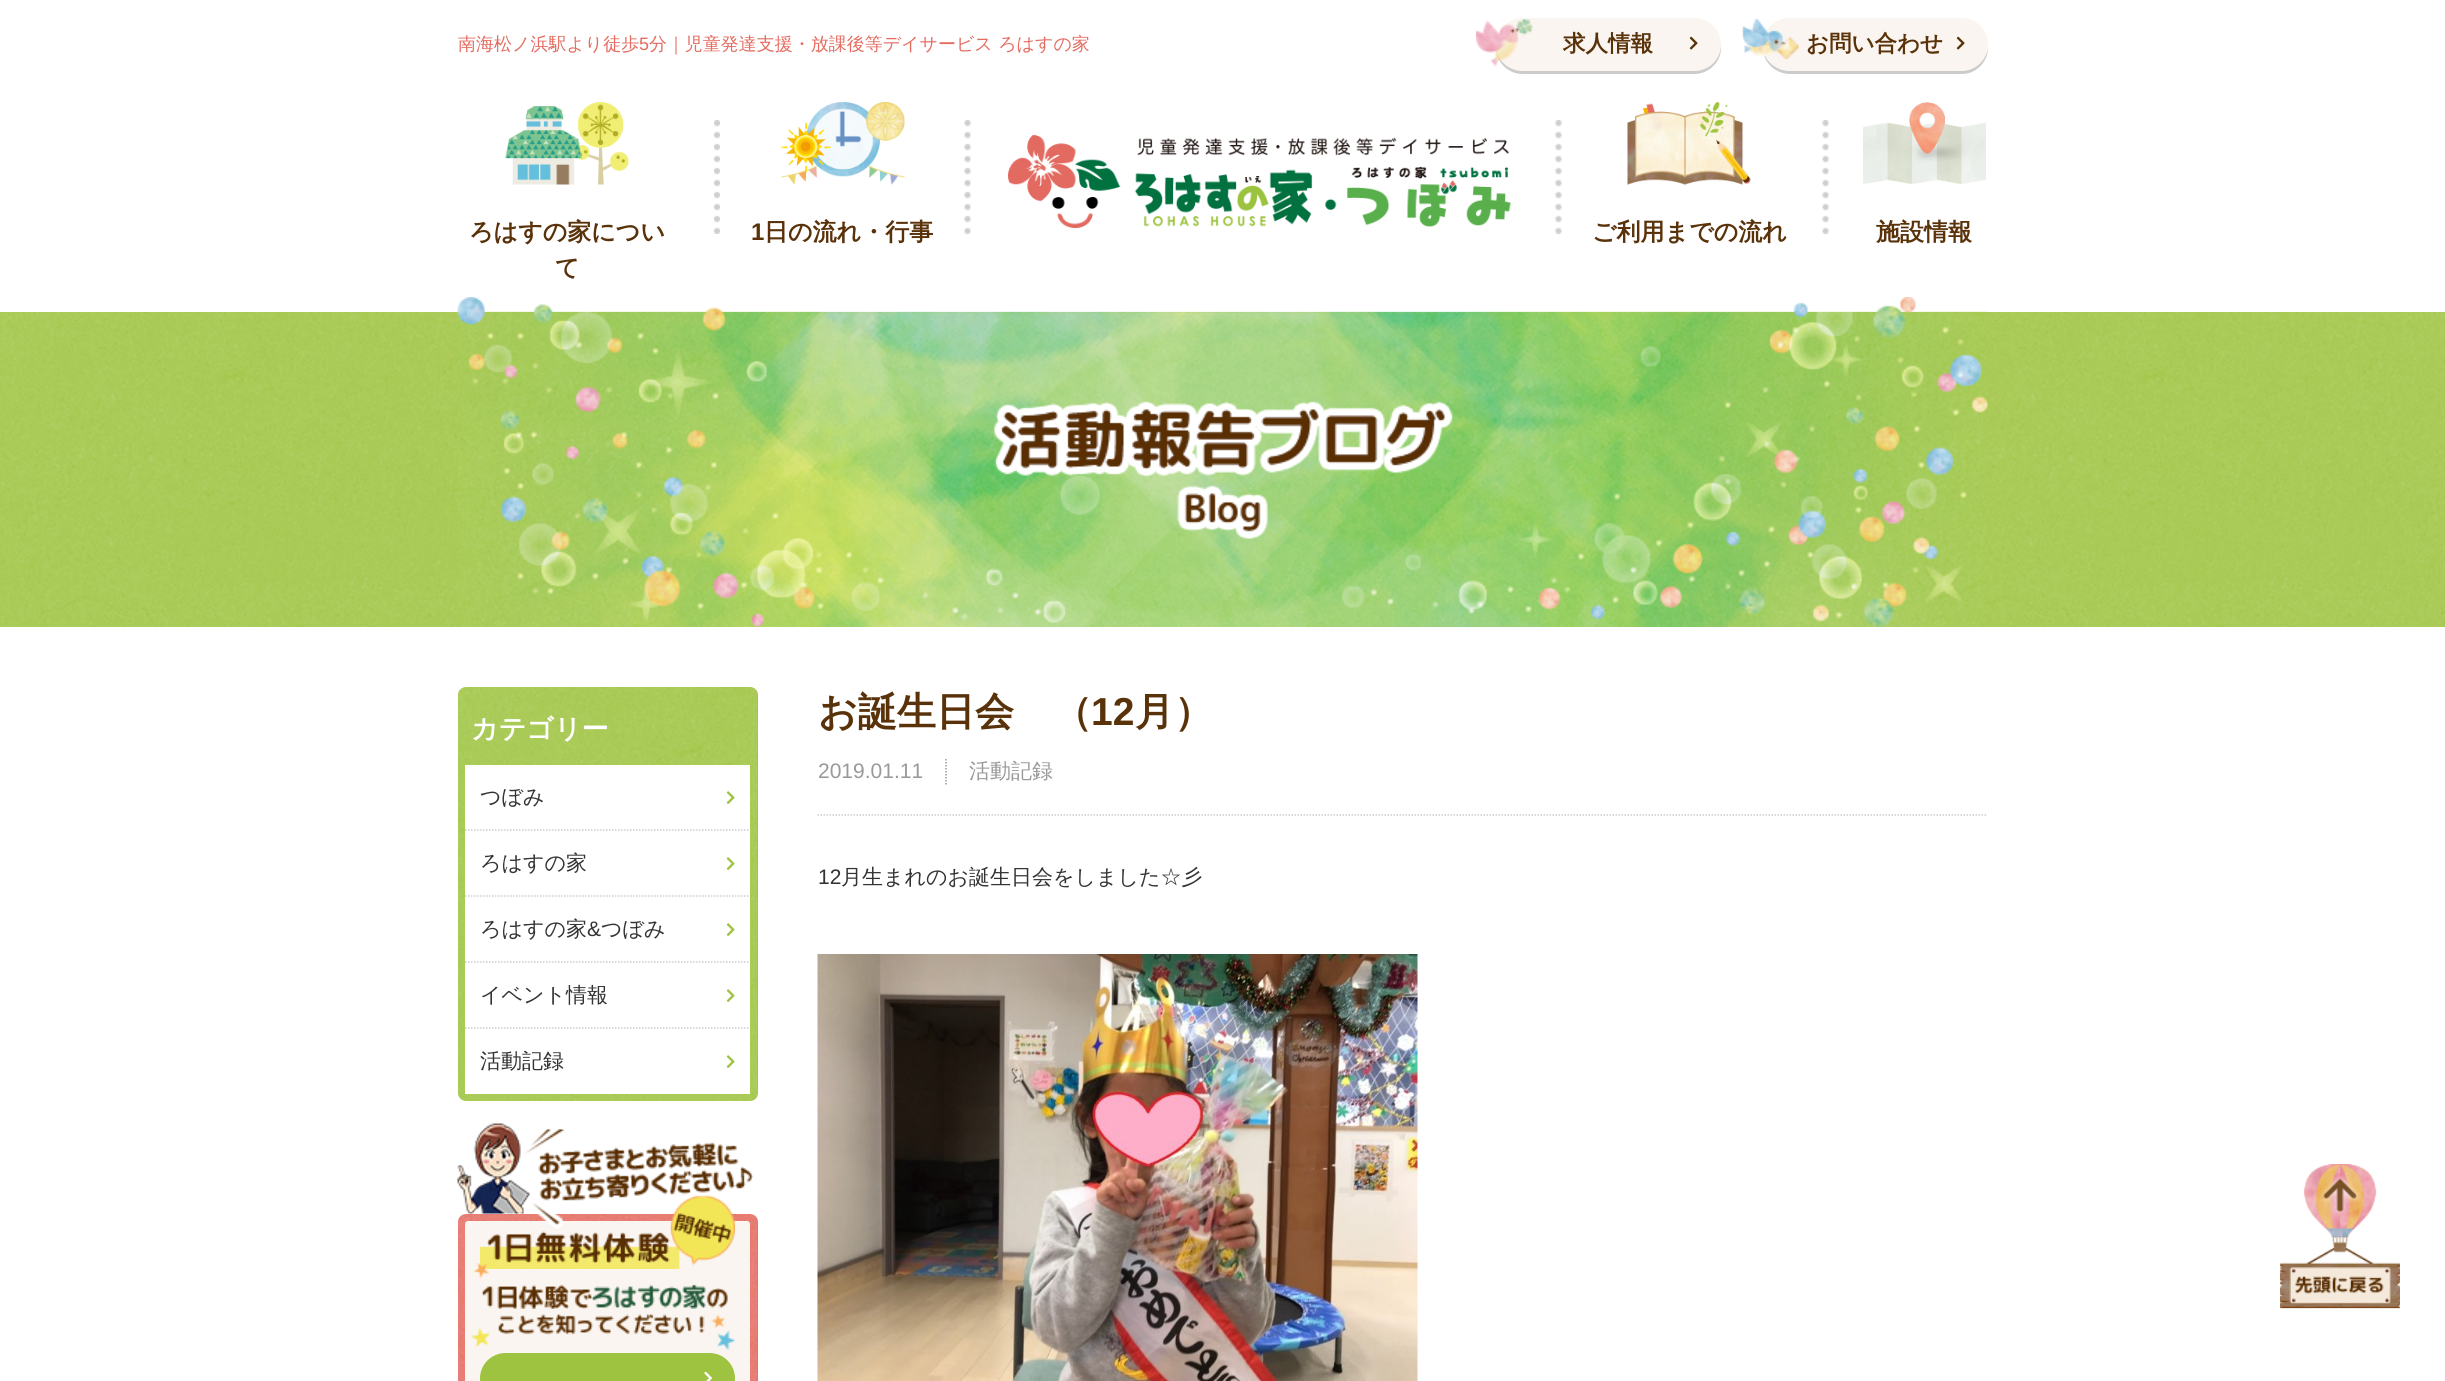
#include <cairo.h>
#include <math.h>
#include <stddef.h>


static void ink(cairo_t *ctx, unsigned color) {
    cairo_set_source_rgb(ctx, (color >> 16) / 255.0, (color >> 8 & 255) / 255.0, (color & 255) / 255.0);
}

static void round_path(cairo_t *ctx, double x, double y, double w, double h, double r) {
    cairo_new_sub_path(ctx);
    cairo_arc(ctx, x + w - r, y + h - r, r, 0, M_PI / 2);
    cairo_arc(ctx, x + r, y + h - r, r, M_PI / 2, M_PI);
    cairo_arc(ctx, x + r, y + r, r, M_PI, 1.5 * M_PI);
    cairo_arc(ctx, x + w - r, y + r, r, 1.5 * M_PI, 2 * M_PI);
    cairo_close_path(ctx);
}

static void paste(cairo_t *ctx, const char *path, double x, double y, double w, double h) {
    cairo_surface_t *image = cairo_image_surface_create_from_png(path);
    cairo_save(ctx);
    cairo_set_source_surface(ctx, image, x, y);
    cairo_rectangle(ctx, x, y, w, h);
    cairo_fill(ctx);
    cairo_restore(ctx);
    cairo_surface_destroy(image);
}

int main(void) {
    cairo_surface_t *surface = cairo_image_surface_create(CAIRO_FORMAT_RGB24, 2445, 1381);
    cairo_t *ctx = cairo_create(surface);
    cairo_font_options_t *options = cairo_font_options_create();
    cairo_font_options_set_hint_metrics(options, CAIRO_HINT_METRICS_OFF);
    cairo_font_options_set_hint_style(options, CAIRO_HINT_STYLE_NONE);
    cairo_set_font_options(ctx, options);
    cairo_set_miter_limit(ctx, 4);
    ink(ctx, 0xFFFFFF);
    cairo_paint(ctx);
    cairo_select_font_face(ctx, "WenQuanYi Zen Hei Medium", CAIRO_FONT_SLANT_NORMAL, CAIRO_FONT_WEIGHT_NORMAL);
    cairo_set_font_size(ctx, 18);
    ink(ctx, 0xE46B60);
    cairo_move_to(ctx, 458, 50);
    cairo_show_text(ctx, "南海松ノ浜駅より徒歩");
    cairo_select_font_face(ctx, "Liberation Sans", CAIRO_FONT_SLANT_NORMAL, CAIRO_FONT_WEIGHT_NORMAL);
    cairo_move_to(ctx, 639, 50);
    cairo_show_text(ctx, "5");
    cairo_select_font_face(ctx, "WenQuanYi Zen Hei Medium", CAIRO_FONT_SLANT_NORMAL, CAIRO_FONT_WEIGHT_NORMAL);
    cairo_move_to(ctx, 649, 50);
    cairo_show_text(ctx, "分｜児童発達支援・放課後等デイサービス ろはすの家");
    ink(ctx, 0xCCCCCC);
    cairo_new_path(ctx);
    cairo_move_to(ctx, 1496, 50);
    cairo_curve_to(ctx, 1497, 63, 1509, 74, 1522, 74);
    cairo_line_to(ctx, 1694, 74);
    cairo_curve_to(ctx, 1709, 74, 1721, 62, 1721, 48);
    cairo_line_to(ctx, 1720, 42);
    cairo_line_to(ctx, 1720, 44);
    cairo_curve_to(ctx, 1720, 59, 1709, 70, 1694, 70);
    cairo_line_to(ctx, 1522, 70);
    cairo_curve_to(ctx, 1509, 70, 1499, 62, 1496, 50);
    cairo_close_path(ctx);
    cairo_fill(ctx);
    ink(ctx, 0xFAF5F0);
    round_path(ctx, 1496, 18, 225, 53, 26.5);
    cairo_fill(ctx);
    paste(ctx, "media/1.png", 1476, 19, 57, 47);
    cairo_select_font_face(ctx, "WenQuanYi Zen Hei", CAIRO_FONT_SLANT_NORMAL, CAIRO_FONT_WEIGHT_BOLD);
    cairo_set_font_size(ctx, 22.5);
    ink(ctx, 0x5A320A);
    cairo_move_to(ctx, 1563, 51);
    cairo_show_text(ctx, "求人情報");
    paste(ctx, "media/2.png", 1689, 36, 9, 14);
    ink(ctx, 0xCCCCCC);
    cairo_new_path(ctx);
    cairo_move_to(ctx, 1763, 50);
    cairo_curve_to(ctx, 1764, 63, 1776, 74, 1790, 74);
    cairo_line_to(ctx, 1962, 74);
    cairo_curve_to(ctx, 1976, 74, 1988, 62, 1988, 48);
    cairo_line_to(ctx, 1987, 42);
    cairo_line_to(ctx, 1988, 44);
    cairo_curve_to(ctx, 1988, 59, 1976, 70, 1961, 70);
    cairo_line_to(ctx, 1789, 70);
    cairo_curve_to(ctx, 1776, 70, 1766, 62, 1763, 50);
    cairo_close_path(ctx);
    cairo_fill(ctx);
    ink(ctx, 0xFAF5F0);
    round_path(ctx, 1763, 18, 225, 53, 26.5);
    cairo_fill(ctx);
    paste(ctx, "media/3.png", 1741, 18, 58, 42);
    ink(ctx, 0x5A320A);
    cairo_move_to(ctx, 1806, 51);
    cairo_show_text(ctx, "お問い合わせ");
    paste(ctx, "media/2.png", 1956, 36, 9, 14);
    paste(ctx, "media/4.png", 1008, 135, 503, 93);
    paste(ctx, "media/5.png", 505, 102, 124, 83);
    cairo_set_font_size(ctx, 24);
    cairo_move_to(ctx, 469, 240);
    cairo_show_text(ctx, "ろはすの家につい");
    cairo_move_to(ctx, 555, 276);
    cairo_show_text(ctx, "て");
    paste(ctx, "media/6.png", 714, 120, 257, 114);
    paste(ctx, "media/7.png", 781, 102, 124, 83);
    cairo_select_font_face(ctx, "Liberation Sans", CAIRO_FONT_SLANT_NORMAL, CAIRO_FONT_WEIGHT_BOLD);
    cairo_move_to(ctx, 751, 240);
    cairo_show_text(ctx, "1");
    cairo_select_font_face(ctx, "WenQuanYi Zen Hei", CAIRO_FONT_SLANT_NORMAL, CAIRO_FONT_WEIGHT_BOLD);
    cairo_move_to(ctx, 764, 240);
    cairo_show_text(ctx, "日の流れ・行事");
    paste(ctx, "media/8.png", 1555, 120, 7, 114);
    paste(ctx, "media/9.png", 1627, 102, 124, 83);
    cairo_move_to(ctx, 1592, 240);
    cairo_show_text(ctx, "ご利用までの流れ");
    paste(ctx, "media/8.png", 1822, 120, 7, 114);
    paste(ctx, "media/10.png", 1863, 102, 123, 82);
    cairo_move_to(ctx, 1876, 240);
    cairo_show_text(ctx, "施設情報");
    ink(ctx, 0x9EC340);
    cairo_rectangle(ctx, 0, 312, 2445, 315);
    cairo_fill(ctx);
    paste(ctx, "media/11.png", 0, 312, 2445, 315);
    paste(ctx, "media/12.png", 457, 297, 1531, 330);
    paste(ctx, "media/13.png", 993, 401, 460, 138);
    round_path(ctx, 458, 687, 300, 414, 8);
    cairo_fill(ctx);
    paste(ctx, "media/14.png", 458, 687, 300, 414);
    cairo_set_font_size(ctx, 27);
    ink(ctx, 0xFFFFFF);
    cairo_move_to(ctx, 471, 738);
    cairo_show_text(ctx, "カテゴリー");
    cairo_rectangle(ctx, 465, 765, 285, 329);
    cairo_fill(ctx);
    cairo_select_font_face(ctx, "WenQuanYi Zen Hei Medium", CAIRO_FONT_SLANT_NORMAL, CAIRO_FONT_WEIGHT_NORMAL);
    cairo_set_font_size(ctx, 21);
    ink(ctx, 0x333333);
    cairo_move_to(ctx, 480, 804);
    cairo_show_text(ctx, "つぼみ");
    paste(ctx, "media/15.png", 726, 791, 9, 13);
    cairo_new_path(ctx);
    cairo_move_to(ctx, 465, 830);
    cairo_line_to(ctx, 750, 830);
    ink(ctx, 0xCCCCCC);
    cairo_set_line_width(ctx, 1.5);
    cairo_set_dash(ctx, (double[]){1.5, 1.5}, 2, 0);
    cairo_stroke(ctx);
    ink(ctx, 0x333333);
    cairo_move_to(ctx, 480, 870);
    cairo_show_text(ctx, "ろはすの家");
    paste(ctx, "media/15.png", 726, 857, 9, 13);
    cairo_new_path(ctx);
    cairo_move_to(ctx, 465, 896);
    cairo_line_to(ctx, 750, 896);
    ink(ctx, 0xCCCCCC);
    cairo_stroke(ctx);
    ink(ctx, 0x333333);
    cairo_move_to(ctx, 480, 936);
    cairo_show_text(ctx, "ろはすの家");
    cairo_select_font_face(ctx, "Liberation Sans", CAIRO_FONT_SLANT_NORMAL, CAIRO_FONT_WEIGHT_NORMAL);
    cairo_move_to(ctx, 587, 936);
    cairo_show_text(ctx, "&");
    cairo_select_font_face(ctx, "WenQuanYi Zen Hei Medium", CAIRO_FONT_SLANT_NORMAL, CAIRO_FONT_WEIGHT_NORMAL);
    cairo_move_to(ctx, 601, 936);
    cairo_show_text(ctx, "つぼみ");
    paste(ctx, "media/15.png", 726, 923, 9, 13);
    cairo_new_path(ctx);
    cairo_move_to(ctx, 465, 962);
    cairo_line_to(ctx, 750, 962);
    ink(ctx, 0xCCCCCC);
    cairo_stroke(ctx);
    ink(ctx, 0x333333);
    cairo_move_to(ctx, 480, 1002);
    cairo_show_text(ctx, "イベント情報");
    paste(ctx, "media/15.png", 726, 989, 9, 13);
    cairo_new_path(ctx);
    cairo_move_to(ctx, 465, 1028);
    cairo_line_to(ctx, 750, 1028);
    ink(ctx, 0xCCCCCC);
    cairo_stroke(ctx);
    ink(ctx, 0x333333);
    cairo_move_to(ctx, 480, 1068);
    cairo_show_text(ctx, "活動記録");
    paste(ctx, "media/15.png", 726, 1055, 9, 13);
    ink(ctx, 0xE46B60);
    round_path(ctx, 458, 1214, 300, 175, 8);
    cairo_fill(ctx);
    paste(ctx, "media/16.png", 458, 1214, 300, 167);
    ink(ctx, 0xFAF5F0);
    round_path(ctx, 465, 1221, 285, 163, 3);
    cairo_fill(ctx);
    paste(ctx, "media/17.png", 465, 1221, 285, 2);
    paste(ctx, "media/19.png", 480, 1195, 255, 74);
    paste(ctx, "media/18.png", 457, 1123, 297, 106);
    paste(ctx, "media/20.png", 471, 1263, 264, 87);
    ink(ctx, 0x9EC340);
    round_path(ctx, 480, 1353, 255, 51, 25.5);
    cairo_fill(ctx);
    paste(ctx, "media/21.png", 704, 1371, 8, 10);
    cairo_select_font_face(ctx, "WenQuanYi Zen Hei", CAIRO_FONT_SLANT_NORMAL, CAIRO_FONT_WEIGHT_BOLD);
    cairo_set_font_size(ctx, 39);
    ink(ctx, 0x5A320A);
    cairo_move_to(ctx, 818, 725);
    cairo_show_text(ctx, "お誕生日会　（");
    cairo_select_font_face(ctx, "Liberation Sans", CAIRO_FONT_SLANT_NORMAL, CAIRO_FONT_WEIGHT_BOLD);
    cairo_move_to(ctx, 1091, 725);
    cairo_show_text(ctx, "12");
    cairo_select_font_face(ctx, "WenQuanYi Zen Hei", CAIRO_FONT_SLANT_NORMAL, CAIRO_FONT_WEIGHT_BOLD);
    cairo_move_to(ctx, 1135, 725);
    cairo_show_text(ctx, "月）");
    cairo_new_path(ctx);
    cairo_move_to(ctx, 817.5, 815);
    cairo_line_to(ctx, 1987.5, 815);
    ink(ctx, 0xCCCCCC);
    cairo_stroke(ctx);
    cairo_select_font_face(ctx, "Liberation Sans", CAIRO_FONT_SLANT_NORMAL, CAIRO_FONT_WEIGHT_NORMAL);
    cairo_set_font_size(ctx, 21);
    ink(ctx, 0x999999);
    cairo_move_to(ctx, 818, 778);
    cairo_show_text(ctx, "2019.01.11");
    cairo_new_path(ctx);
    cairo_move_to(ctx, 946, 759);
    cairo_line_to(ctx, 946, 784.5);
    cairo_stroke(ctx);
    cairo_select_font_face(ctx, "WenQuanYi Zen Hei Medium", CAIRO_FONT_SLANT_NORMAL, CAIRO_FONT_WEIGHT_NORMAL);
    cairo_move_to(ctx, 969, 778);
    cairo_show_text(ctx, "活動記録");
    cairo_select_font_face(ctx, "Liberation Sans", CAIRO_FONT_SLANT_NORMAL, CAIRO_FONT_WEIGHT_NORMAL);
    ink(ctx, 0x333333);
    cairo_move_to(ctx, 818, 884);
    cairo_show_text(ctx, "12");
    cairo_select_font_face(ctx, "WenQuanYi Zen Hei Medium", CAIRO_FONT_SLANT_NORMAL, CAIRO_FONT_WEIGHT_NORMAL);
    cairo_move_to(ctx, 841, 884);
    cairo_show_text(ctx, "月生まれのお誕生日会をしました☆彡");
    paste(ctx, "media/22.png", 817, 954, 601, 427);
    paste(ctx, "media/23.png", 2280, 1164, 120, 145);
    cairo_surface_write_to_png(surface, "image.png");
    cairo_font_options_destroy(options);
    cairo_destroy(ctx);
    cairo_surface_destroy(surface);
    return 0;
}
